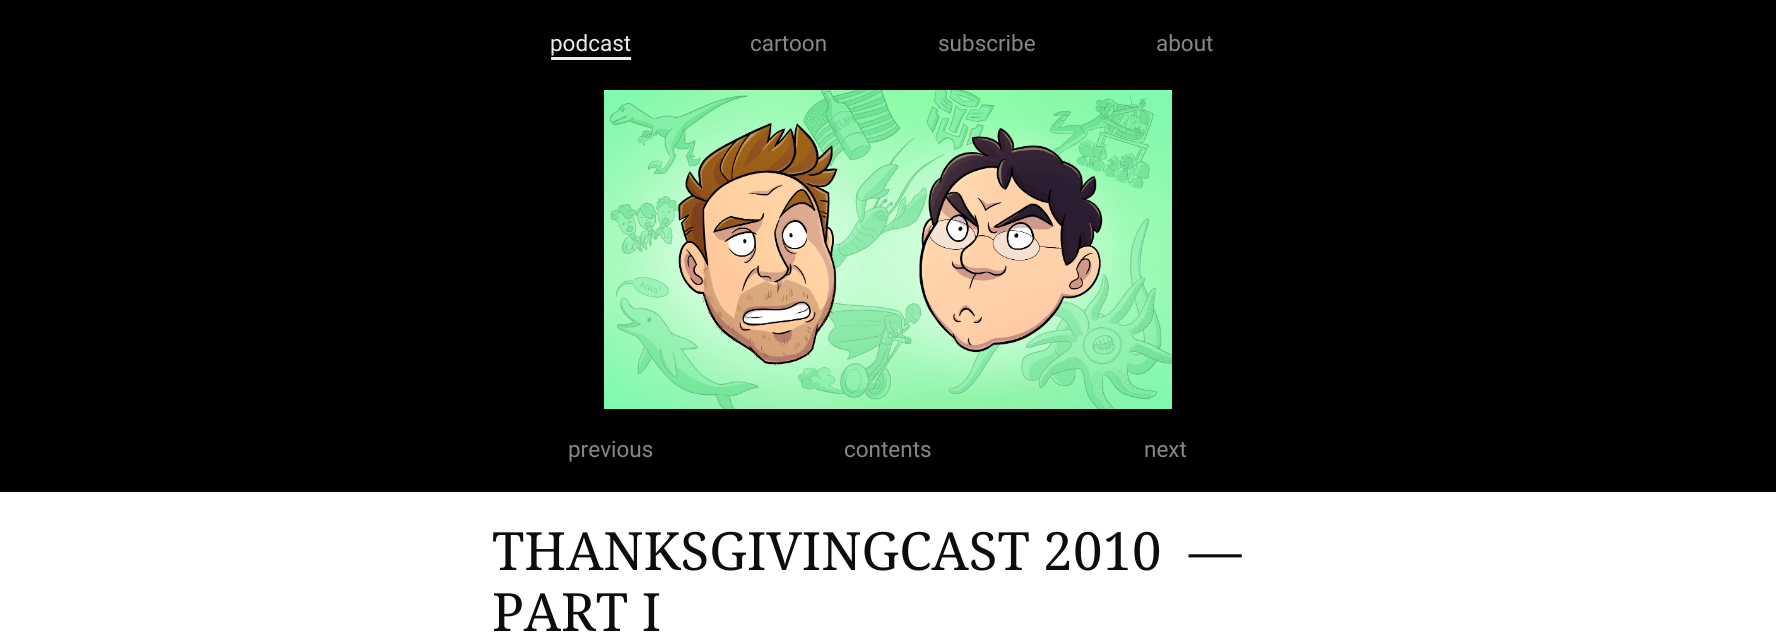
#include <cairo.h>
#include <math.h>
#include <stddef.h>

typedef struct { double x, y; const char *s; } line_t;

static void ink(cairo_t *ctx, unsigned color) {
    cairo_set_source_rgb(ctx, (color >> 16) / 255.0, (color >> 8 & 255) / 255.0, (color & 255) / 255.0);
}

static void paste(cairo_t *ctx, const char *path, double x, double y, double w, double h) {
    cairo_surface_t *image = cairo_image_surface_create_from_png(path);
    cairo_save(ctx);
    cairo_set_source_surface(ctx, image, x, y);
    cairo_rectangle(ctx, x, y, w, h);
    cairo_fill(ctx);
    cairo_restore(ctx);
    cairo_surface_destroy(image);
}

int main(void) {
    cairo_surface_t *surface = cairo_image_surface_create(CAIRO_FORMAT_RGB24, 1776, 639);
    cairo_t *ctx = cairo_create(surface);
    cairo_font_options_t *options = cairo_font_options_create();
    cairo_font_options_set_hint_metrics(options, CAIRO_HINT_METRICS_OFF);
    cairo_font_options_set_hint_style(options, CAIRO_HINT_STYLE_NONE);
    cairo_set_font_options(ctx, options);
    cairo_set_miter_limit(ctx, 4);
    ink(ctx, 0x000000);
    cairo_paint(ctx);
    cairo_select_font_face(ctx, "Roboto", CAIRO_FONT_SLANT_NORMAL, CAIRO_FONT_WEIGHT_NORMAL);
    cairo_set_font_size(ctx, 22.5);
    ink(ctx, 0xEDEDED);
    cairo_move_to(ctx, 550, 51);
    cairo_show_text(ctx, "podcast");
    cairo_rectangle(ctx, 551, 57, 80, 3);
    cairo_fill(ctx);
    ink(ctx, 0x878787);
    {
        static const line_t items[] = {
            {750, 51, "cartoon"},
            {938, 51, "subscribe"},
            {1156, 51, "about"},
        };
        for (size_t i = 0; i < sizeof items / sizeof *items; i++) {
            cairo_move_to(ctx, items[i].x, items[i].y);
            cairo_show_text(ctx, items[i].s);
        }
    }
    paste(ctx, "media/1.png", 604, 90, 568, 319);
    {
        static const line_t items[] = {
            {568, 457, "previous"},
            {844, 457, "contents"},
            {1144, 457, "next"},
        };
        for (size_t i = 0; i < sizeof items / sizeof *items; i++) {
            cairo_move_to(ctx, items[i].x, items[i].y);
            cairo_show_text(ctx, items[i].s);
        }
    }
    ink(ctx, 0xFFFFFF);
    cairo_rectangle(ctx, 0, 492, 1776, 147);
    cairo_fill(ctx);
    cairo_select_font_face(ctx, "Noto Serif", CAIRO_FONT_SLANT_NORMAL, CAIRO_FONT_WEIGHT_NORMAL);
    cairo_set_font_size(ctx, 52.75);
    ink(ctx, 0x0D0D0D);
    cairo_move_to(ctx, 492, 570);
    cairo_show_text(ctx, "THANKSGIVINGCAST 2010  —");
    cairo_move_to(ctx, 492, 631);
    cairo_show_text(ctx, "PART I");
    cairo_surface_write_to_png(surface, "image.png");
    cairo_font_options_destroy(options);
    cairo_destroy(ctx);
    cairo_surface_destroy(surface);
    return 0;
}
